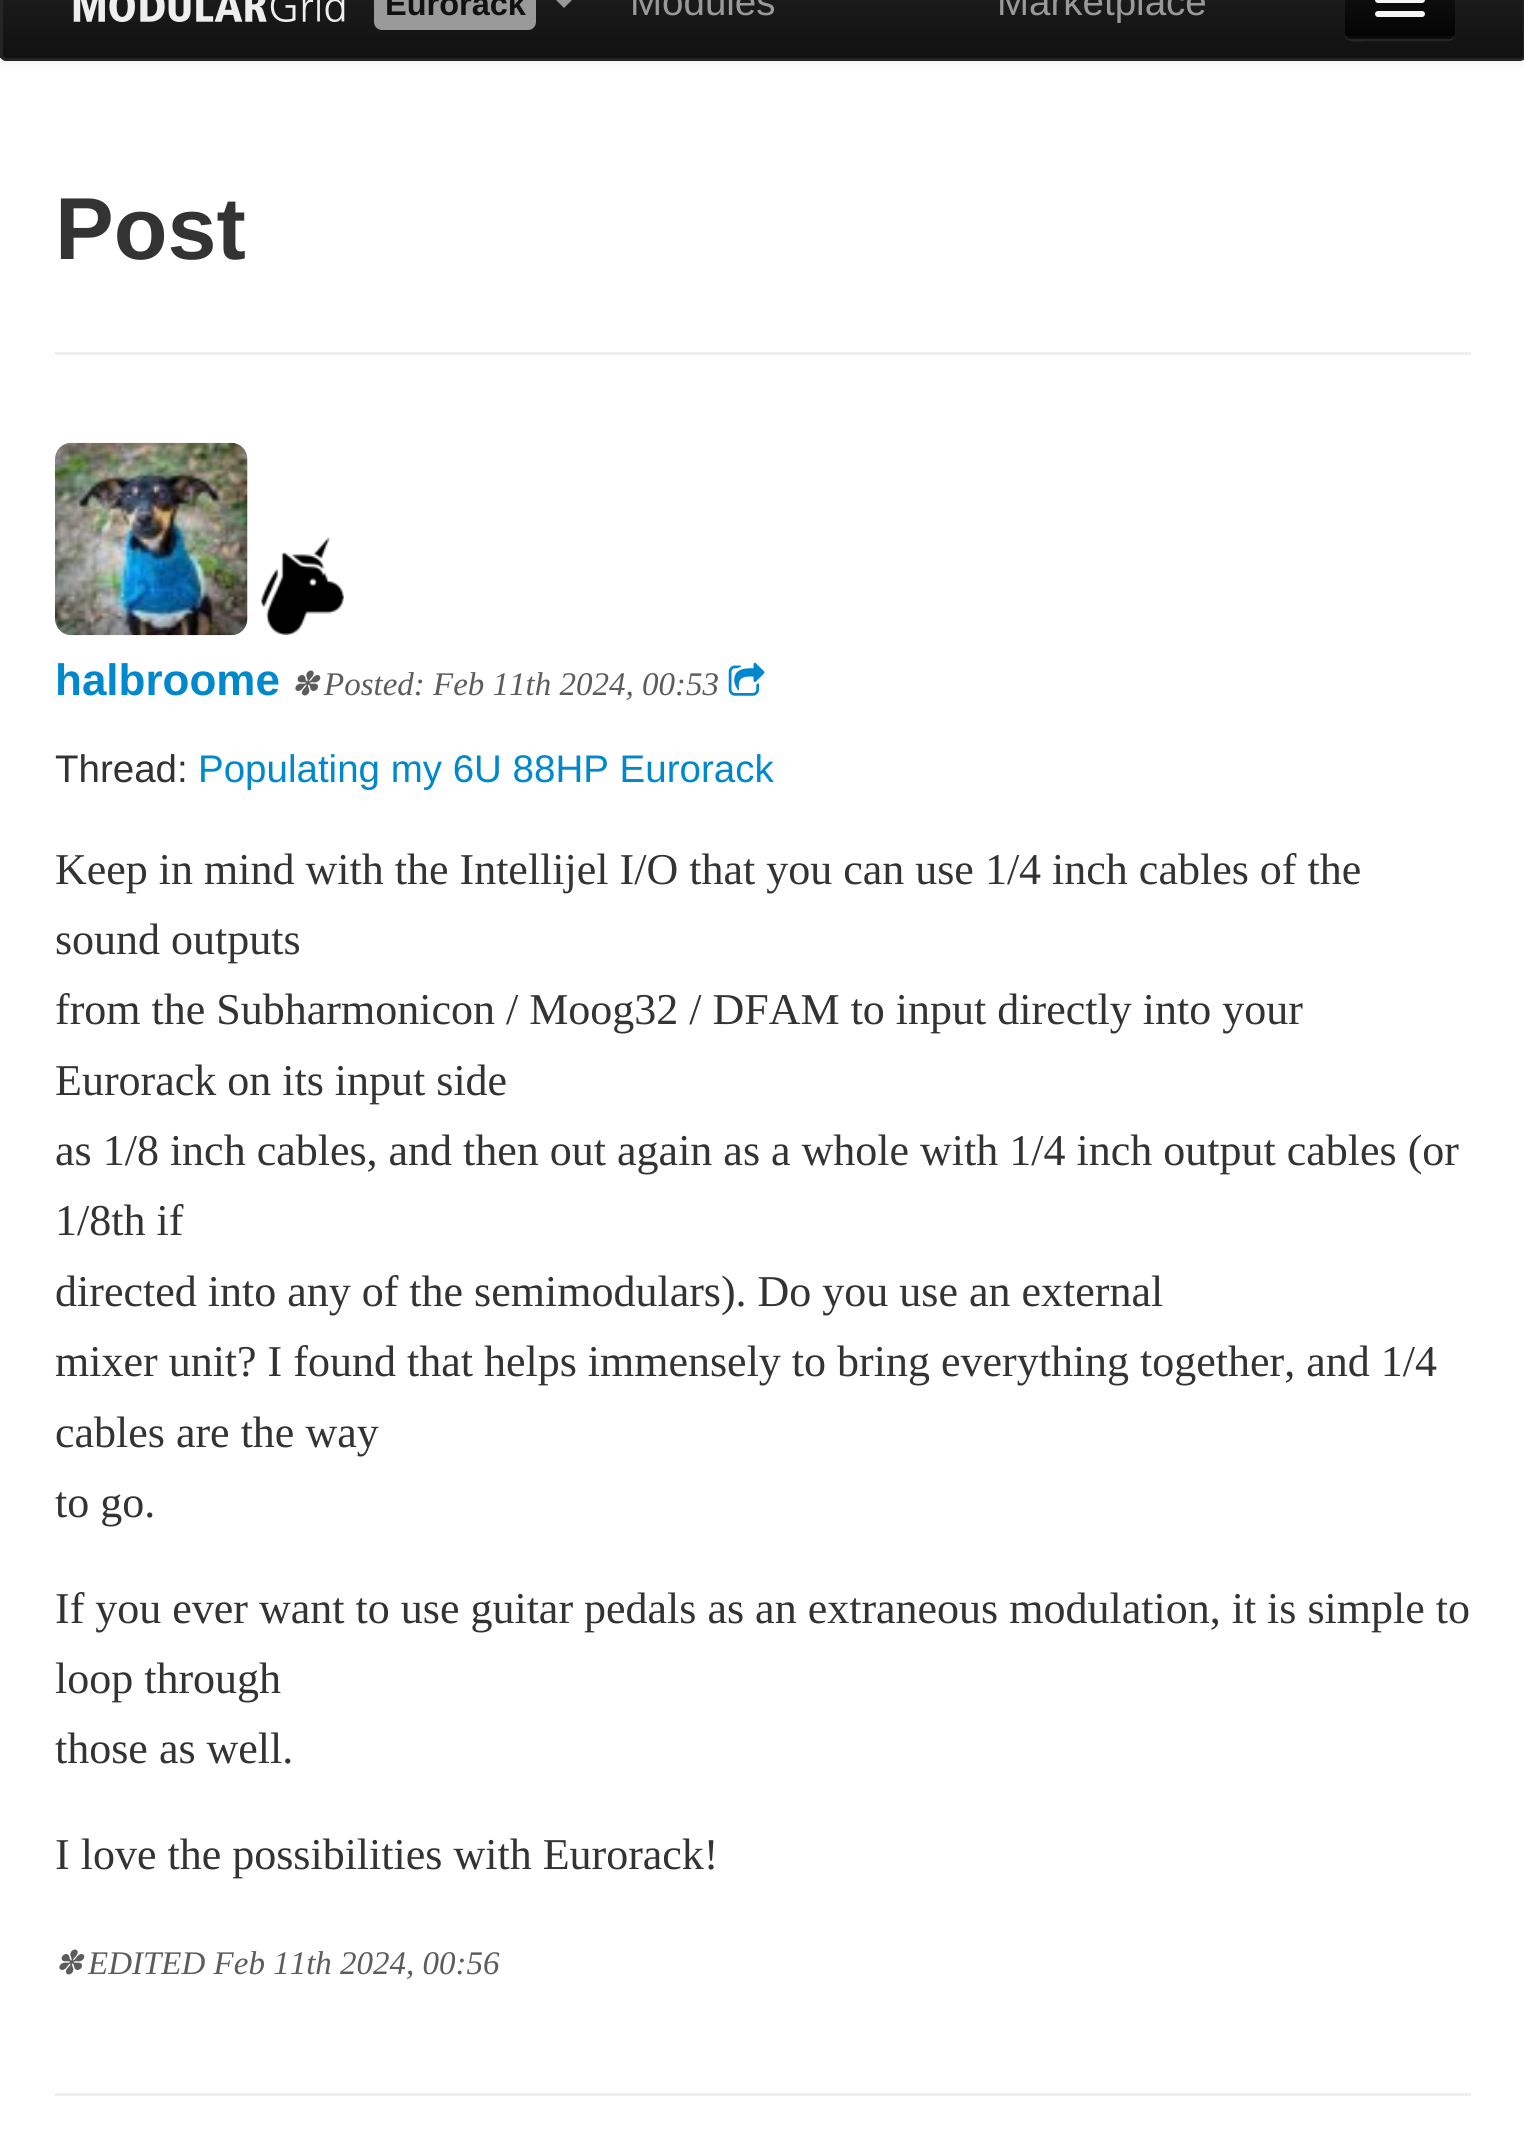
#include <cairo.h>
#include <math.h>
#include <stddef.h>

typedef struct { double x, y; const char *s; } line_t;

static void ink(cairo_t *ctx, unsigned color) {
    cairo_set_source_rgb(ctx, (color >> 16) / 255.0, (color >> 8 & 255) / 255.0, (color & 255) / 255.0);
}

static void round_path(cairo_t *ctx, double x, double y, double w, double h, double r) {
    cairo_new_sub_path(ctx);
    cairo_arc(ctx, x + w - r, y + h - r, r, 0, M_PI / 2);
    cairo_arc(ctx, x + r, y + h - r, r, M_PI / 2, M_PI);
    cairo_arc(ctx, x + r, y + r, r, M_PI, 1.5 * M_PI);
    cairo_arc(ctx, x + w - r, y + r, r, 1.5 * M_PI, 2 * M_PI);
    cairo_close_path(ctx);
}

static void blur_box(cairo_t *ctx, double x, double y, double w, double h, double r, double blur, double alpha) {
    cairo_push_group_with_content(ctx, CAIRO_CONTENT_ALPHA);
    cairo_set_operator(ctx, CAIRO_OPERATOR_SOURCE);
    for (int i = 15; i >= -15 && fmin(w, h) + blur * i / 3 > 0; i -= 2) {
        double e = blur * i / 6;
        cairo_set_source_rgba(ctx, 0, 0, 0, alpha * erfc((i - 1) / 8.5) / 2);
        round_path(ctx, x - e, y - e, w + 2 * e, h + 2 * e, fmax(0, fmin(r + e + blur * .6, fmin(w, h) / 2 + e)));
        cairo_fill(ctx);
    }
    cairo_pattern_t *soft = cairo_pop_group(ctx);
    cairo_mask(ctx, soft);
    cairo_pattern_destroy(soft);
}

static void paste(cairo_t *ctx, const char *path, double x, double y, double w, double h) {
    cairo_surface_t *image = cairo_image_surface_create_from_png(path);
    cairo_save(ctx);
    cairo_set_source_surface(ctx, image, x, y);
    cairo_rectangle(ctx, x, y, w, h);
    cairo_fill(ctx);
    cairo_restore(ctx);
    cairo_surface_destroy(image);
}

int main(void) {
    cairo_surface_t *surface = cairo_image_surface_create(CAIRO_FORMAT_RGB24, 1524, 2156);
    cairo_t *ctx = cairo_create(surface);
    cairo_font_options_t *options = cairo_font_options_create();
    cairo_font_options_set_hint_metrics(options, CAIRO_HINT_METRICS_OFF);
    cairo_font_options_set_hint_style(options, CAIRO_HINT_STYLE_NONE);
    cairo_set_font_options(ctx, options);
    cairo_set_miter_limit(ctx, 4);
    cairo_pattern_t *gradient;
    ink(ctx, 0xFFFFFF);
    cairo_paint(ctx);
    ink(ctx, 0x000000);
    blur_box(ctx, 0, -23, 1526, 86, 6, 5.5, 0.07);
    gradient = cairo_pattern_create_linear(763, -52, 763, 58);
    cairo_pattern_add_color_stop_rgba(gradient, 0, 0.133, 0.133, 0.133, 1);
    cairo_pattern_add_color_stop_rgba(gradient, 1, 0.067, 0.067, 0.067, 1);
    cairo_set_source(ctx, gradient);
    cairo_pattern_destroy(gradient);
    cairo_rectangle(ctx, 0, 0, 1523, 58);
    cairo_fill(ctx);
    round_path(ctx, 1.5, -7.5, 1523, 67, 4.5);
    ink(ctx, 0x252525);
    cairo_set_line_width(ctx, 3);
    cairo_stroke(ctx);
    paste(ctx, "media/1.png", 73, 0, 272, 22);
    ink(ctx, 0x999999);
    round_path(ctx, 374, -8, 162, 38, 8);
    cairo_fill(ctx);
    cairo_select_font_face(ctx, "Liberation Sans", CAIRO_FONT_SLANT_NORMAL, CAIRO_FONT_WEIGHT_BOLD);
    cairo_set_font_size(ctx, 32.5);
    ink(ctx, 0x111111);
    cairo_move_to(ctx, 385, 15);
    cairo_show_text(ctx, "Eurorack");
    ink(ctx, 0x999999);
    cairo_new_path(ctx);
    cairo_move_to(ctx, 553, -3);
    cairo_line_to(ctx, 575, -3);
    cairo_line_to(ctx, 564, 8);
    cairo_close_path(ctx);
    cairo_fill(ctx);
    cairo_select_font_face(ctx, "Liberation Sans", CAIRO_FONT_SLANT_NORMAL, CAIRO_FONT_WEIGHT_NORMAL);
    cairo_set_font_size(ctx, 38.5);
    cairo_move_to(ctx, 630, 15);
    cairo_show_text(ctx, "Modules");
    cairo_move_to(ctx, 997, 15);
    cairo_show_text(ctx, "Marketplace");
    ink(ctx, 0x262626);
    cairo_new_path(ctx);
    cairo_move_to(ctx, 1345, 35);
    cairo_curve_to(ctx, 1345, 45, 1363, 41, 1367, 41);
    cairo_line_to(ctx, 1450, 41);
    cairo_curve_to(ctx, 1457, 39, 1455, 28, 1455, 24);
    cairo_line_to(ctx, 1455, -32);
    cairo_line_to(ctx, 1455, 33);
    cairo_curve_to(ctx, 1455, 36, 1452, 38, 1449, 38);
    cairo_line_to(ctx, 1350, 38);
    cairo_curve_to(ctx, 1348, 38, 1346, 37, 1345, 35);
    cairo_close_path(ctx);
    cairo_fill(ctx);
    ink(ctx, 0x0E0E0E);
    round_path(ctx, 1345, -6, 110, 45, 6);
    cairo_fill(ctx);
    cairo_save(ctx);
    round_path(ctx, 1345, -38, 110, 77, 6);
    cairo_clip(ctx);
    gradient = cairo_pattern_create_linear(1400, -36, 1400, 36);
    cairo_pattern_add_color_stop_rgba(gradient, 0, 0.082, 0.082, 0.082, 1);
    cairo_pattern_add_color_stop_rgba(gradient, 1, 0.016, 0.016, 0.016, 1);
    cairo_set_source(ctx, gradient);
    cairo_pattern_destroy(gradient);
    cairo_rectangle(ctx, 1345, 0, 110, 36);
    cairo_fill(ctx);
    cairo_restore(ctx);
    cairo_new_path(ctx);
    cairo_move_to(ctx, 1452, 36);
    cairo_line_to(ctx, 1449.5, 37);
    cairo_line_to(ctx, 1350, 37);
    cairo_line_to(ctx, 1347.5, 36);
    cairo_set_source_rgba(ctx, 0, 0, 0, 0.25);
    cairo_set_line_width(ctx, 2.8);
    cairo_stroke(ctx);
    ink(ctx, 0x090909);
    cairo_new_path(ctx);
    cairo_move_to(ctx, 1375, 1);
    cairo_curve_to(ctx, 1372, 7, 1385, 6, 1385, 6);
    cairo_line_to(ctx, 1415, 6);
    cairo_curve_to(ctx, 1416, 6, 1424, 8, 1425, 4);
    cairo_line_to(ctx, 1424, 1);
    cairo_line_to(ctx, 1423, 3);
    cairo_line_to(ctx, 1377, 3);
    cairo_close_path(ctx);
    cairo_fill(ctx);
    ink(ctx, 0xF5F5F5);
    round_path(ctx, 1375, -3, 50, 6, 3);
    cairo_fill(ctx);
    ink(ctx, 0x060606);
    cairo_new_path(ctx);
    cairo_move_to(ctx, 1376, 15);
    cairo_curve_to(ctx, 1371, 21, 1385, 20, 1385, 20);
    cairo_line_to(ctx, 1415, 20);
    cairo_curve_to(ctx, 1416, 20, 1424, 22, 1425, 18);
    cairo_line_to(ctx, 1424, 15);
    cairo_line_to(ctx, 1422, 16);
    cairo_line_to(ctx, 1377, 16);
    cairo_close_path(ctx);
    cairo_fill(ctx);
    ink(ctx, 0xF5F5F5);
    round_path(ctx, 1375, 11, 50, 6, 3);
    cairo_fill(ctx);
    ink(ctx, 0xEEEEEE);
    cairo_rectangle(ctx, 55, 352, 1416, 3);
    cairo_fill(ctx);
    cairo_select_font_face(ctx, "Liberation Sans", CAIRO_FONT_SLANT_NORMAL, CAIRO_FONT_WEIGHT_BOLD);
    cairo_set_font_size(ctx, 88);
    ink(ctx, 0x333333);
    cairo_move_to(ctx, 55, 259);
    cairo_show_text(ctx, "Post");
    paste(ctx, "media/2.png", 55, 442, 193, 194);
    paste(ctx, "media/3.png", 261, 537, 83, 99);
    cairo_set_font_size(ctx, 44);
    ink(ctx, 0x0088CC);
    cairo_move_to(ctx, 55, 695);
    cairo_show_text(ctx, "halbroome");
    cairo_select_font_face(ctx, "DejaVu Sans", CAIRO_FONT_SLANT_ITALIC, CAIRO_FONT_WEIGHT_NORMAL);
    cairo_set_font_size(ctx, 33);
    ink(ctx, 0x5C5C5C);
    cairo_move_to(ctx, 291, 695);
    cairo_show_text(ctx, "✽");
    cairo_select_font_face(ctx, "Liberation Serif", CAIRO_FONT_SLANT_ITALIC, CAIRO_FONT_WEIGHT_NORMAL);
    cairo_move_to(ctx, 324, 695);
    cairo_show_text(ctx, "Posted: Feb 11th 2024, 00:53");
    paste(ctx, "media/4.png", 728, 662, 37, 34);
    cairo_select_font_face(ctx, "Liberation Sans", CAIRO_FONT_SLANT_NORMAL, CAIRO_FONT_WEIGHT_NORMAL);
    cairo_set_font_size(ctx, 38.5);
    ink(ctx, 0x333333);
    cairo_move_to(ctx, 55, 782);
    cairo_show_text(ctx, "Thread:");
    ink(ctx, 0x0088CC);
    cairo_move_to(ctx, 198, 782);
    cairo_show_text(ctx, "Populating my 6U 88HP Eurorack");
    cairo_select_font_face(ctx, "Liberation Serif", CAIRO_FONT_SLANT_NORMAL, CAIRO_FONT_WEIGHT_NORMAL);
    cairo_set_font_size(ctx, 44);
    ink(ctx, 0x333333);
    {
        static const line_t items[] = {
            {55, 884, "Keep in mind with the Intellijel I/O that you can use 1/4 inch cables of the"},
            {55, 954, "sound outputs"},
            {55, 1024, "from the Subharmonicon / Moog32 / DFAM to input directly into your"},
            {55, 1095, "Eurorack on its input side"},
            {55, 1165, "as 1/8 inch cables, and then out again as a whole with 1/4 inch output cables (or"},
            {55, 1235, "1/8th if"},
            {55, 1306, "directed into any of the semimodulars). Do you use an external"},
            {55, 1376, "mixer unit? I found that helps immensely to bring everything together, and 1/4"},
            {55, 1447, "cables are the way"},
            {55, 1517, "to go."},
            {55, 1623, "If you ever want to use guitar pedals as an extraneous modulation, it is simple to"},
            {55, 1693, "loop through"},
            {55, 1763, "those as well."},
            {55, 1869, "I love the possibilities with Eurorack!"},
        };
        for (size_t i = 0; i < sizeof items / sizeof *items; i++) {
            cairo_move_to(ctx, items[i].x, items[i].y);
            cairo_show_text(ctx, items[i].s);
        }
    }
    cairo_select_font_face(ctx, "DejaVu Sans", CAIRO_FONT_SLANT_ITALIC, CAIRO_FONT_WEIGHT_NORMAL);
    cairo_set_font_size(ctx, 33);
    ink(ctx, 0x5C5C5C);
    cairo_move_to(ctx, 55, 1974);
    cairo_show_text(ctx, "✽");
    cairo_select_font_face(ctx, "Liberation Serif", CAIRO_FONT_SLANT_ITALIC, CAIRO_FONT_WEIGHT_NORMAL);
    cairo_move_to(ctx, 88, 1974);
    cairo_show_text(ctx, "EDITED Feb 11th 2024, 00:56");
    ink(ctx, 0xEEEEEE);
    cairo_rectangle(ctx, 55, 2093, 1416, 3);
    cairo_fill(ctx);
    cairo_surface_write_to_png(surface, "image.png");
    cairo_font_options_destroy(options);
    cairo_destroy(ctx);
    cairo_surface_destroy(surface);
    return 0;
}
